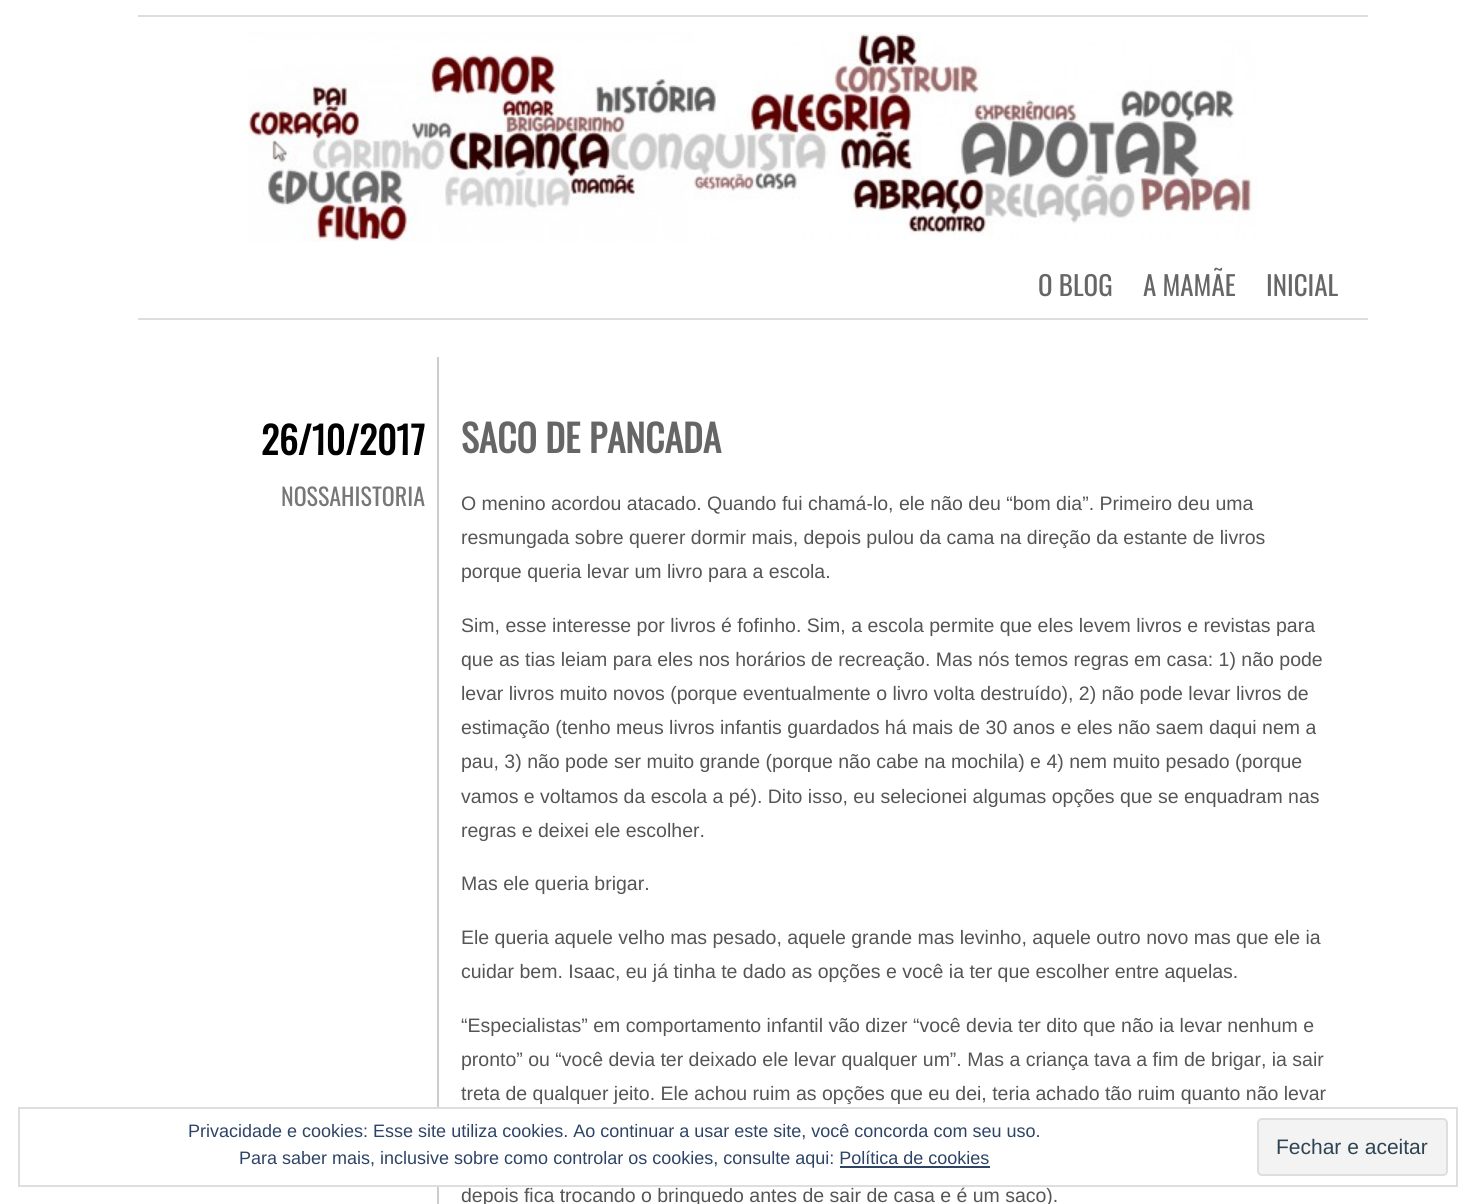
#include <cairo.h>
#include <math.h>
#include <stddef.h>

typedef struct { double x, y; const char *s; } line_t;

static void ink(cairo_t *ctx, unsigned color) {
    cairo_set_source_rgb(ctx, (color >> 16) / 255.0, (color >> 8 & 255) / 255.0, (color & 255) / 255.0);
}

static void round_path(cairo_t *ctx, double x, double y, double w, double h, double r) {
    cairo_new_sub_path(ctx);
    cairo_arc(ctx, x + w - r, y + h - r, r, 0, M_PI / 2);
    cairo_arc(ctx, x + r, y + h - r, r, M_PI / 2, M_PI);
    cairo_arc(ctx, x + r, y + r, r, M_PI, 1.5 * M_PI);
    cairo_arc(ctx, x + w - r, y + r, r, 1.5 * M_PI, 2 * M_PI);
    cairo_close_path(ctx);
}

static void paste(cairo_t *ctx, const char *path, double x, double y, double w, double h) {
    cairo_surface_t *image = cairo_image_surface_create_from_png(path);
    cairo_save(ctx);
    cairo_set_source_surface(ctx, image, x, y);
    cairo_rectangle(ctx, x, y, w, h);
    cairo_fill(ctx);
    cairo_restore(ctx);
    cairo_surface_destroy(image);
}

int main(void) {
    cairo_surface_t *surface = cairo_image_surface_create(CAIRO_FORMAT_RGB24, 1476, 1204);
    cairo_t *ctx = cairo_create(surface);
    cairo_font_options_t *options = cairo_font_options_create();
    cairo_font_options_set_hint_metrics(options, CAIRO_HINT_METRICS_OFF);
    cairo_font_options_set_hint_style(options, CAIRO_HINT_STYLE_NONE);
    cairo_set_font_options(ctx, options);
    cairo_set_miter_limit(ctx, 4);
    ink(ctx, 0xFFFFFF);
    cairo_paint(ctx);
    ink(ctx, 0xDDDDDD);
    cairo_rectangle(ctx, 138, 15, 1230, 2);
    cairo_fill(ctx);
    cairo_rectangle(ctx, 138, 318, 1230, 2);
    cairo_fill(ctx);
    paste(ctx, "media/1.png", 248, 31, 1009, 211);
    cairo_select_font_face(ctx, "Oswald", CAIRO_FONT_SLANT_NORMAL, CAIRO_FONT_WEIGHT_NORMAL);
    cairo_set_font_size(ctx, 27);
    ink(ctx, 0x666666);
    {
        static const line_t items[] = {
            {1038, 296, "O BLOG"},
            {1143, 296, "A MAMÃE"},
            {1266, 296, "INICIAL"},
        };
        for (size_t i = 0; i < sizeof items / sizeof *items; i++) {
            cairo_move_to(ctx, items[i].x, items[i].y);
            cairo_show_text(ctx, items[i].s);
        }
    }
    ink(ctx, 0xCCCCCC);
    cairo_rectangle(ctx, 437, 357, 2, 847);
    cairo_fill(ctx);
    cairo_select_font_face(ctx, "Oswald", CAIRO_FONT_SLANT_NORMAL, CAIRO_FONT_WEIGHT_BOLD);
    cairo_set_font_size(ctx, 37.5);
    ink(ctx, 0x000000);
    cairo_move_to(ctx, 261, 455);
    cairo_show_text(ctx, "26/10/2017");
    cairo_select_font_face(ctx, "Oswald", CAIRO_FONT_SLANT_NORMAL, CAIRO_FONT_WEIGHT_NORMAL);
    cairo_set_font_size(ctx, 24);
    ink(ctx, 0x777777);
    cairo_move_to(ctx, 281, 506);
    cairo_show_text(ctx, "NOSSAHISTORIA");
    cairo_select_font_face(ctx, "Oswald", CAIRO_FONT_SLANT_NORMAL, CAIRO_FONT_WEIGHT_BOLD);
    cairo_set_font_size(ctx, 37.5);
    ink(ctx, 0x666666);
    cairo_move_to(ctx, 461, 453);
    cairo_show_text(ctx, "SACO DE PANCADA");
    cairo_select_font_face(ctx, "Liberation Sans", CAIRO_FONT_SLANT_NORMAL, CAIRO_FONT_WEIGHT_NORMAL);
    cairo_set_font_size(ctx, 19.5);
    ink(ctx, 0x555555);
    {
        static const line_t items[] = {
            {461, 510, "O menino acordou atacado. Quando fui chamá-lo, ele não deu “bom dia”. Primeiro deu uma"},
            {461, 544, "resmungada sobre querer dormir mais, depois pulou da cama na direção da estante de livros"},
            {461, 578, "porque queria levar um livro para a escola."},
            {461, 632, "Sim, esse interesse por livros é fofinho. Sim, a escola permite que eles levem livros e revistas para"},
            {461, 666, "que as tias leiam para eles nos horários de recreação. Mas nós temos regras em casa: 1) não pode"},
            {461, 700, "levar livros muito novos (porque eventualmente o livro volta destruído), 2) não pode levar livros de"},
            {461, 734, "estimação (tenho meus livros infantis guardados há mais de 30 anos e eles não saem daqui nem a"},
            {461, 768, "pau, 3) não pode ser muito grande (porque não cabe na mochila) e 4) nem muito pesado (porque"},
            {461, 803, "vamos e voltamos da escola a pé). Dito isso, eu selecionei algumas opções que se enquadram nas"},
            {461, 837, "regras e deixei ele escolher."},
            {461, 890, "Mas ele queria brigar."},
            {461, 944, "Ele queria aquele velho mas pesado, aquele grande mas levinho, aquele outro novo mas que ele ia"},
            {461, 978, "cuidar bem. Isaac, eu já tinha te dado as opções e você ia ter que escolher entre aquelas."},
            {461, 1032, "“Especialistas” em comportamento infantil vão dizer “você devia ter dito que não ia levar nenhum e"},
            {461, 1066, "pronto” ou “você devia ter deixado ele levar qualquer um”. Mas a criança tava a fim de brigar, ia sair"},
            {461, 1100, "treta de qualquer jeito. Ele achou ruim as opções que eu dei, teria achado tão ruim quanto não levar"},
            {461, 1202, "depois fica trocando o brinquedo antes de sair de casa e é um saco)."},
        };
        for (size_t i = 0; i < sizeof items / sizeof *items; i++) {
            cairo_move_to(ctx, items[i].x, items[i].y);
            cairo_show_text(ctx, items[i].s);
        }
    }
    ink(ctx, 0xFFFFFF);
    cairo_rectangle(ctx, 437, 1109, 2, 76);
    cairo_fill(ctx);
    cairo_rectangle(ctx, 19, 1108, 1438, 78);
    ink(ctx, 0xDEDEDE);
    cairo_stroke(ctx);
    cairo_set_font_size(ctx, 18);
    ink(ctx, 0x2E4467);
    cairo_move_to(ctx, 188, 1137);
    cairo_show_text(ctx, "Privacidade e cookies: Esse site utiliza cookies. Ao continuar a usar este site, você concorda com seu uso.");
    ink(ctx, 0xF3F3F3);
    round_path(ctx, 1258, 1119, 189, 56, 4);
    cairo_fill_preserve(ctx);
    ink(ctx, 0xDEDEDE);
    cairo_stroke(ctx);
    cairo_set_font_size(ctx, 21);
    ink(ctx, 0x2E4453);
    cairo_move_to(ctx, 1276, 1154);
    cairo_show_text(ctx, "Fechar e aceitar");
    cairo_set_font_size(ctx, 18);
    ink(ctx, 0x2E4467);
    cairo_move_to(ctx, 239, 1164);
    cairo_show_text(ctx, "Para saber mais, inclusive sobre como controlar os cookies, consulte aqui: Política de cookies");
    cairo_rectangle(ctx, 840, 1166, 150, 2);
    cairo_fill(ctx);
    cairo_surface_write_to_png(surface, "image.png");
    cairo_font_options_destroy(options);
    cairo_destroy(ctx);
    cairo_surface_destroy(surface);
    return 0;
}
